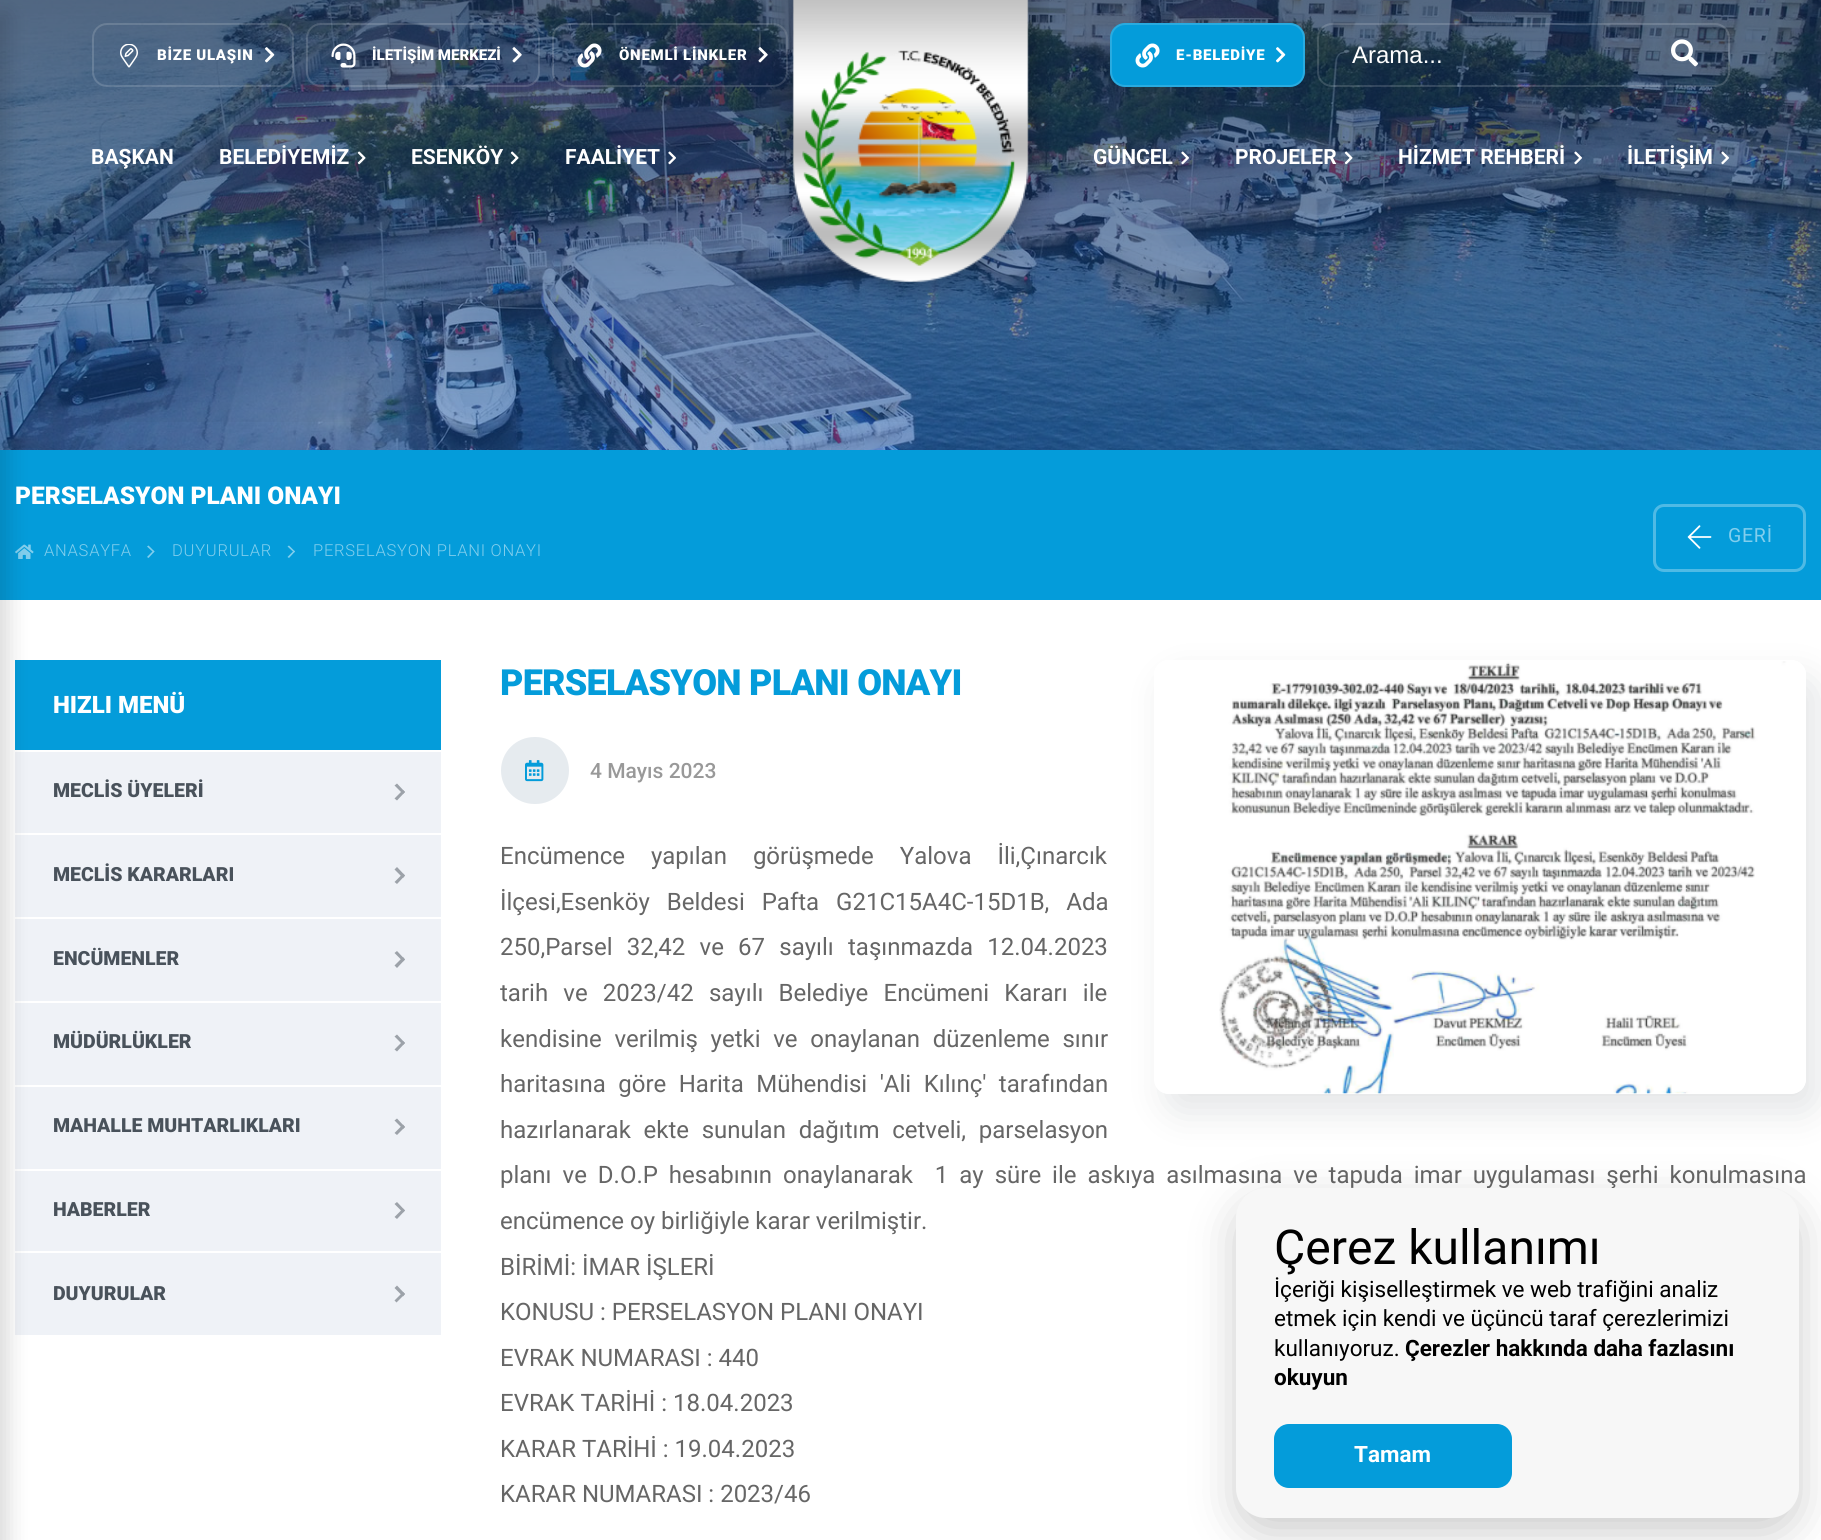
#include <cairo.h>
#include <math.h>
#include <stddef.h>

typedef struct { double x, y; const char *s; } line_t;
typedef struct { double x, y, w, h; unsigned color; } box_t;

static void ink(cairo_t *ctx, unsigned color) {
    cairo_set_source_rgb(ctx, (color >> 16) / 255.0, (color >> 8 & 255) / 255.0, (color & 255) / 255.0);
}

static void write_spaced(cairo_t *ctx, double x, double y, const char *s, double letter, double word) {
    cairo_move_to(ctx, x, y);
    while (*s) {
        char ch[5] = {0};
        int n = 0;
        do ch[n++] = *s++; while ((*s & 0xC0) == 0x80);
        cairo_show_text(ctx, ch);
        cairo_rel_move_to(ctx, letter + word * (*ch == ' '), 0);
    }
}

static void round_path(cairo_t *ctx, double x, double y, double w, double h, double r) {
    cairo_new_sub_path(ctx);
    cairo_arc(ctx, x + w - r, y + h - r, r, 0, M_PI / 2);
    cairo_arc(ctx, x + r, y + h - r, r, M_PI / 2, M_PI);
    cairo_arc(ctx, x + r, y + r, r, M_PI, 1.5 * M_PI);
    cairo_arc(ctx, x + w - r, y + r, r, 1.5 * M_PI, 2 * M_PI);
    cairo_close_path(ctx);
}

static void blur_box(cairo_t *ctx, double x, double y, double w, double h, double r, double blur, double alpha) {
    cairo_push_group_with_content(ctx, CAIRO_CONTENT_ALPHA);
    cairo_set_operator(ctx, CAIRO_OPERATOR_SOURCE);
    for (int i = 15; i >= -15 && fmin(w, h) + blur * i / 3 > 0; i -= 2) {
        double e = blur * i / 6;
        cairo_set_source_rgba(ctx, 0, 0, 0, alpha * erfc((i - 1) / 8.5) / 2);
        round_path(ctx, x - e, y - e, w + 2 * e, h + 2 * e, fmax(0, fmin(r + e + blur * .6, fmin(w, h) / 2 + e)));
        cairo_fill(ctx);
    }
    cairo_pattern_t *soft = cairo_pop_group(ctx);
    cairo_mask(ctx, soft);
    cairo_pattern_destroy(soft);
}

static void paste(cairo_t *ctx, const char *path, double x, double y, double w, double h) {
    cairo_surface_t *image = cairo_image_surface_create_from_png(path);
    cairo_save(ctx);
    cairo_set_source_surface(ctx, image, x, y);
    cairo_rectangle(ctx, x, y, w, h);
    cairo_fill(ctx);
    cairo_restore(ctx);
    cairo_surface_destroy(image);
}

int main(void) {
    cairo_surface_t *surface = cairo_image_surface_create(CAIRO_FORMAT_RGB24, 1821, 1540);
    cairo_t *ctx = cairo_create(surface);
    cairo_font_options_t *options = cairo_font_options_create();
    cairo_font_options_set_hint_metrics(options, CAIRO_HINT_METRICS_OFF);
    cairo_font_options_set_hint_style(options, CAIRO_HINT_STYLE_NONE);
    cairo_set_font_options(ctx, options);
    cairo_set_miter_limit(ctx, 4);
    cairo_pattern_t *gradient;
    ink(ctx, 0xFFFFFF);
    cairo_paint(ctx);
    ink(ctx, 0x1553A4);
    cairo_rectangle(ctx, 0, 0, 1821, 450);
    cairo_fill(ctx);
    paste(ctx, "media/1.png", 0, 0, 1821, 450);
    gradient = cairo_pattern_create_linear(911, 0, 911, 450);
    cairo_pattern_add_color_stop_rgba(gradient, 0, 0, 0, 0, 0.35);
    cairo_pattern_add_color_stop_rgba(gradient, 1, 0, 0, 0, 0);
    cairo_set_source(ctx, gradient);
    cairo_pattern_destroy(gradient);
    cairo_rectangle(ctx, 0, 0, 1821, 422);
    cairo_fill(ctx);
    ink(ctx, 0x049CDA);
    cairo_rectangle(ctx, 0, 450, 1821, 150);
    cairo_fill(ctx);
    paste(ctx, "media/20.png", 15, 544, 19, 15);
    {
        static const box_t items[] = {
            {15, 752, 426, 583, 0xEFF2F7},
            {15, 660, 426, 90, 0x049CDA},
            {15, 833, 426, 2, 0xFFFFFF},
            {15, 917, 426, 2, 0xFFFFFF},
            {15, 1001, 426, 2, 0xFFFFFF},
            {15, 1085, 426, 2, 0xFFFFFF},
            {15, 1169, 426, 2, 0xFFFFFF},
            {15, 1251, 426, 2, 0xFFFFFF},
        };
        for (size_t i = 0; i < sizeof items / sizeof *items; i++) {
            ink(ctx, items[i].color);
            cairo_rectangle(ctx, items[i].x, items[i].y, items[i].w, items[i].h);
            cairo_fill(ctx);
        }
    }
    ink(ctx, 0x000000);
    blur_box(ctx, -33, 15, 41, 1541, 0, 11, 0.15);
    round_path(ctx, 553, 24, 234, 62, 14);
    cairo_set_source_rgba(ctx, 1, 1, 1, 0.15);
    cairo_stroke(ctx);
    paste(ctx, "media/2.png", 772, 0, 277, 300);
    paste(ctx, "media/3.png", 802, 50, 213, 216);
    round_path(ctx, 93, 24, 200, 62, 14);
    cairo_stroke(ctx);
    paste(ctx, "media/4.png", 120, 44, 18, 24);
    cairo_select_font_face(ctx, "Roboto Black", CAIRO_FONT_SLANT_NORMAL, CAIRO_FONT_WEIGHT_NORMAL);
    cairo_set_font_size(ctx, 15);
    ink(ctx, 0xFFFFFF);
    write_spaced(ctx, 157, 60, "BİZE ULAŞIN", 0.75, 0);
    paste(ctx, "media/5.png", 265, 47, 10, 16);
    round_path(ctx, 307, 24, 232, 62, 14);
    cairo_set_source_rgba(ctx, 1, 1, 1, 0.15);
    cairo_stroke(ctx);
    paste(ctx, "media/6.png", 331, 43, 25, 25);
    ink(ctx, 0xFFFFFF);
    cairo_move_to(ctx, 372, 60);
    cairo_show_text(ctx, "İLETİŞİM MERKEZİ");
    paste(ctx, "media/7.png", 512, 47, 10, 16);
    paste(ctx, "media/8.png", 577, 43, 25, 25);
    write_spaced(ctx, 619, 60, "ÖNEMLİ LİNKLER", 0.75, 0);
    paste(ctx, "media/9.png", 758, 47, 10, 16);
    ink(ctx, 0x049CDA);
    round_path(ctx, 1110, 23, 195, 64, 15);
    cairo_fill(ctx);
    round_path(ctx, 1111, 24, 193, 62, 14);
    cairo_set_source_rgba(ctx, 1, 1, 1, 0.15);
    cairo_stroke(ctx);
    paste(ctx, "media/10.png", 1135, 43, 25, 25);
    ink(ctx, 0xFFFFFF);
    write_spaced(ctx, 1176, 60, "E-BELEDİYE", 0.75, 0);
    paste(ctx, "media/11.png", 1276, 47, 10, 16);
    round_path(ctx, 1318, 24, 411, 62, 14);
    cairo_set_source_rgba(ctx, 1, 1, 1, 0.15);
    cairo_stroke(ctx);
    cairo_select_font_face(ctx, "Liberation Sans", CAIRO_FONT_SLANT_NORMAL, CAIRO_FONT_WEIGHT_NORMAL);
    cairo_set_font_size(ctx, 24);
    ink(ctx, 0xFFFFFF);
    cairo_move_to(ctx, 1352, 63);
    cairo_show_text(ctx, "Arama...");
    paste(ctx, "media/12.png", 1671, 39, 27, 28);
    cairo_select_font_face(ctx, "Roboto", CAIRO_FONT_SLANT_NORMAL, CAIRO_FONT_WEIGHT_BOLD);
    cairo_set_font_size(ctx, 21);
    cairo_move_to(ctx, 91, 164);
    cairo_show_text(ctx, "BAŞKAN");
    cairo_move_to(ctx, 219, 164);
    cairo_show_text(ctx, "BELEDİYEMİZ");
    paste(ctx, "media/13.png", 357, 151, 9, 14);
    cairo_move_to(ctx, 411, 164);
    cairo_show_text(ctx, "ESENKÖY");
    paste(ctx, "media/14.png", 510, 151, 9, 14);
    cairo_move_to(ctx, 565, 164);
    cairo_show_text(ctx, "FAALİYET");
    paste(ctx, "media/15.png", 668, 151, 8, 14);
    cairo_move_to(ctx, 1093, 164);
    cairo_show_text(ctx, "GÜNCEL");
    paste(ctx, "media/16.png", 1181, 151, 8, 14);
    cairo_move_to(ctx, 1235, 164);
    cairo_show_text(ctx, "PROJELER");
    paste(ctx, "media/17.png", 1344, 151, 9, 14);
    cairo_move_to(ctx, 1398, 164);
    cairo_show_text(ctx, "HİZMET REHBERİ");
    paste(ctx, "media/18.png", 1574, 151, 8, 14);
    cairo_move_to(ctx, 1627, 164);
    cairo_show_text(ctx, "İLETİŞİM");
    paste(ctx, "media/19.png", 1721, 151, 8, 14);
    cairo_select_font_face(ctx, "Roboto Black", CAIRO_FONT_SLANT_NORMAL, CAIRO_FONT_WEIGHT_NORMAL);
    cairo_set_font_size(ctx, 24.5);
    cairo_move_to(ctx, 15, 504);
    cairo_show_text(ctx, "PERSELASYON PLANI ONAYI");
    cairo_select_font_face(ctx, "Roboto Light", CAIRO_FONT_SLANT_NORMAL, CAIRO_FONT_WEIGHT_NORMAL);
    cairo_set_font_size(ctx, 16.5);
    ink(ctx, 0x82CEED);
    write_spaced(ctx, 44, 556, "ANASAYFA", 0.75, 0);
    cairo_new_path(ctx);
    cairo_move_to(ctx, 148.5, 545.5);
    cairo_line_to(ctx, 154.5, 551.5);
    cairo_line_to(ctx, 153.5, 552.5);
    cairo_line_to(ctx, 147, 546.5);
    cairo_close_path(ctx);
    cairo_fill(ctx);
    cairo_new_path(ctx);
    cairo_move_to(ctx, 153.5, 550.5);
    cairo_line_to(ctx, 154.5, 551.5);
    cairo_line_to(ctx, 148.5, 558);
    cairo_line_to(ctx, 147, 557);
    cairo_close_path(ctx);
    cairo_fill(ctx);
    write_spaced(ctx, 172, 556, "DUYURULAR", 0.75, 0);
    cairo_new_path(ctx);
    cairo_move_to(ctx, 289, 545.5);
    cairo_line_to(ctx, 295, 551.5);
    cairo_line_to(ctx, 294, 552.5);
    cairo_line_to(ctx, 287.5, 546.5);
    cairo_close_path(ctx);
    cairo_fill(ctx);
    cairo_new_path(ctx);
    cairo_move_to(ctx, 294, 550.5);
    cairo_line_to(ctx, 295, 551.5);
    cairo_line_to(ctx, 289, 558);
    cairo_line_to(ctx, 287.5, 557);
    cairo_close_path(ctx);
    cairo_fill(ctx);
    write_spaced(ctx, 313, 556, "PERSELASYON PLANI ONAYI", 0.75, 0);
    round_path(ctx, 1654.5, 505.5, 150, 65, 9.5);
    ink(ctx, 0x4FBAE5);
    cairo_set_line_width(ctx, 3);
    cairo_stroke(ctx);
    paste(ctx, "media/21.png", 1687, 525, 25, 24);
    cairo_select_font_face(ctx, "Roboto", CAIRO_FONT_SLANT_NORMAL, CAIRO_FONT_WEIGHT_NORMAL);
    cairo_set_font_size(ctx, 19.5);
    ink(ctx, 0x82CEED);
    write_spaced(ctx, 1728, 542, "GERİ", 0.75, 0);
    cairo_select_font_face(ctx, "Roboto Black", CAIRO_FONT_SLANT_NORMAL, CAIRO_FONT_WEIGHT_NORMAL);
    cairo_set_font_size(ctx, 24);
    ink(ctx, 0xFFFFFF);
    cairo_move_to(ctx, 53, 713);
    cairo_show_text(ctx, "HIZLI MENÜ");
    cairo_set_font_size(ctx, 19.5);
    ink(ctx, 0x49525B);
    cairo_move_to(ctx, 53, 797);
    cairo_show_text(ctx, "MECLİS ÜYELERİ");
    ink(ctx, 0x9CA2A9);
    cairo_new_path(ctx);
    cairo_move_to(ctx, 397, 783.5);
    cairo_line_to(ctx, 405, 792);
    cairo_line_to(ctx, 403, 794);
    cairo_line_to(ctx, 394.5, 785.5);
    cairo_close_path(ctx);
    cairo_fill(ctx);
    cairo_new_path(ctx);
    cairo_move_to(ctx, 403, 790);
    cairo_line_to(ctx, 405, 792);
    cairo_line_to(ctx, 397, 800.5);
    cairo_line_to(ctx, 394.5, 798.5);
    cairo_close_path(ctx);
    cairo_fill(ctx);
    ink(ctx, 0x49525B);
    cairo_move_to(ctx, 53, 881);
    cairo_show_text(ctx, "MECLİS KARARLARI");
    ink(ctx, 0x9CA2A9);
    cairo_new_path(ctx);
    cairo_move_to(ctx, 397, 867);
    cairo_line_to(ctx, 405, 875.5);
    cairo_line_to(ctx, 403, 878);
    cairo_line_to(ctx, 394.5, 869.5);
    cairo_close_path(ctx);
    cairo_fill(ctx);
    cairo_new_path(ctx);
    cairo_move_to(ctx, 403, 873.5);
    cairo_line_to(ctx, 405, 875.5);
    cairo_line_to(ctx, 397, 884);
    cairo_line_to(ctx, 394.5, 882);
    cairo_close_path(ctx);
    cairo_fill(ctx);
    ink(ctx, 0x49525B);
    cairo_move_to(ctx, 53, 965);
    cairo_show_text(ctx, "ENCÜMENLER");
    ink(ctx, 0x9CA2A9);
    cairo_new_path(ctx);
    cairo_move_to(ctx, 397, 951);
    cairo_line_to(ctx, 405, 959.5);
    cairo_line_to(ctx, 403, 961.5);
    cairo_line_to(ctx, 394.5, 953);
    cairo_close_path(ctx);
    cairo_fill(ctx);
    cairo_new_path(ctx);
    cairo_move_to(ctx, 403, 957);
    cairo_line_to(ctx, 405, 959.5);
    cairo_line_to(ctx, 397, 968);
    cairo_line_to(ctx, 394.5, 965.5);
    cairo_close_path(ctx);
    cairo_fill(ctx);
    ink(ctx, 0x49525B);
    cairo_move_to(ctx, 53, 1048);
    cairo_show_text(ctx, "MÜDÜRLÜKLER");
    ink(ctx, 0x9CA2A9);
    cairo_new_path(ctx);
    cairo_move_to(ctx, 397, 1034.5);
    cairo_line_to(ctx, 405, 1043);
    cairo_line_to(ctx, 403, 1045);
    cairo_line_to(ctx, 394.5, 1036.5);
    cairo_close_path(ctx);
    cairo_fill(ctx);
    cairo_new_path(ctx);
    cairo_move_to(ctx, 403, 1041);
    cairo_line_to(ctx, 405, 1043);
    cairo_line_to(ctx, 397, 1051.5);
    cairo_line_to(ctx, 394.5, 1049.5);
    cairo_close_path(ctx);
    cairo_fill(ctx);
    ink(ctx, 0x49525B);
    cairo_move_to(ctx, 53, 1132);
    cairo_show_text(ctx, "MAHALLE MUHTARLIKLARI");
    ink(ctx, 0x9CA2A9);
    cairo_new_path(ctx);
    cairo_move_to(ctx, 397, 1118.5);
    cairo_line_to(ctx, 405, 1127);
    cairo_line_to(ctx, 403, 1129);
    cairo_line_to(ctx, 394.5, 1120.5);
    cairo_close_path(ctx);
    cairo_fill(ctx);
    cairo_new_path(ctx);
    cairo_move_to(ctx, 403, 1124.5);
    cairo_line_to(ctx, 405, 1127);
    cairo_line_to(ctx, 397, 1135);
    cairo_line_to(ctx, 394.5, 1133);
    cairo_close_path(ctx);
    cairo_fill(ctx);
    ink(ctx, 0x49525B);
    cairo_move_to(ctx, 53, 1216);
    cairo_show_text(ctx, "HABERLER");
    ink(ctx, 0x9CA2A9);
    cairo_new_path(ctx);
    cairo_move_to(ctx, 397, 1202);
    cairo_line_to(ctx, 405, 1210.5);
    cairo_line_to(ctx, 403, 1212.5);
    cairo_line_to(ctx, 394.5, 1204);
    cairo_close_path(ctx);
    cairo_fill(ctx);
    cairo_new_path(ctx);
    cairo_move_to(ctx, 403, 1208.5);
    cairo_line_to(ctx, 405, 1210.5);
    cairo_line_to(ctx, 397, 1219);
    cairo_line_to(ctx, 394.5, 1217);
    cairo_close_path(ctx);
    cairo_fill(ctx);
    ink(ctx, 0x49525B);
    cairo_move_to(ctx, 53, 1300);
    cairo_show_text(ctx, "DUYURULAR");
    ink(ctx, 0x9CA2A9);
    cairo_new_path(ctx);
    cairo_move_to(ctx, 397, 1285.5);
    cairo_line_to(ctx, 405, 1294);
    cairo_line_to(ctx, 403, 1296.5);
    cairo_line_to(ctx, 394.5, 1288);
    cairo_close_path(ctx);
    cairo_fill(ctx);
    cairo_new_path(ctx);
    cairo_move_to(ctx, 403, 1292);
    cairo_line_to(ctx, 405, 1294);
    cairo_line_to(ctx, 396.5, 1302.5);
    cairo_line_to(ctx, 394.5, 1300.5);
    cairo_close_path(ctx);
    cairo_fill(ctx);
    cairo_set_font_size(ctx, 36);
    ink(ctx, 0x049CDA);
    write_spaced(ctx, 500, 695, "PERSELASYON PLANI ONAYI", -0.75, 0);
    cairo_save(ctx);
    cairo_set_fill_rule(ctx, CAIRO_FILL_RULE_EVEN_ODD);
    cairo_new_path(ctx);
    cairo_move_to(ctx, 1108, 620);
    cairo_line_to(ctx, 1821, 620);
    cairo_line_to(ctx, 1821, 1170);
    cairo_line_to(ctx, 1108, 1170);
    cairo_close_path(ctx);
    cairo_move_to(ctx, 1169, 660);
    cairo_line_to(ctx, 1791, 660);
    cairo_curve_to(ctx, 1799.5, 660, 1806, 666.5, 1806, 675);
    cairo_line_to(ctx, 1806, 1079);
    cairo_curve_to(ctx, 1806, 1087.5, 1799.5, 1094, 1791, 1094);
    cairo_line_to(ctx, 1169, 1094);
    cairo_curve_to(ctx, 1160.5, 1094, 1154, 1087.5, 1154, 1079);
    cairo_line_to(ctx, 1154, 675);
    cairo_curve_to(ctx, 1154, 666.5, 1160.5, 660, 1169, 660);
    cairo_close_path(ctx);
    cairo_clip(ctx);
    ink(ctx, 0x49525B);
    blur_box(ctx, 1166, 678, 652, 434, 15, 19, 0.15);
    cairo_restore(ctx);
    paste(ctx, "media/22.png", 1219, 661, 587, 433);
    ink(ctx, 0xE6EBEF);
    round_path(ctx, 501, 737, 68, 67, 33.5);
    cairo_fill(ctx);
    paste(ctx, "media/23.png", 525, 760, 19, 22);
    cairo_select_font_face(ctx, "Roboto Medium", CAIRO_FONT_SLANT_NORMAL, CAIRO_FONT_WEIGHT_NORMAL);
    cairo_set_font_size(ctx, 21);
    ink(ctx, 0x999999);
    cairo_move_to(ctx, 590, 778);
    cairo_show_text(ctx, "4 Mayıs 2023");
    cairo_select_font_face(ctx, "Roboto", CAIRO_FONT_SLANT_NORMAL, CAIRO_FONT_WEIGHT_NORMAL);
    cairo_set_font_size(ctx, 24);
    ink(ctx, 0x666666);
    write_spaced(ctx, 500, 864, "Encümence yapılan görüşmede Yalova İli,Çınarcık", 0, 20);
    write_spaced(ctx, 500, 910, "İlçesi,Esenköy Beldesi Pafta G21C15A4C-15D1B, Ada", 0, 11);
    write_spaced(ctx, 500, 955, "250,Parsel 32,42 ve 67 sayılı taşınmazda 12.04.2023", 0, 8.25);
    write_spaced(ctx, 500, 1001, "tarih ve 2023/42 sayılı Belediye Encümeni Kararı ile", 0, 9.25);
    write_spaced(ctx, 500, 1047, "kendisine verilmiş yetki ve onaylanan düzenleme sınır", 0, 6.75);
    write_spaced(ctx, 500, 1092, "haritasına göre Harita Mühendisi 'Ali Kılınç' tarafından", 0, 6.5);
    write_spaced(ctx, 500, 1138, "hazırlanarak ekte sunulan dağıtım cetveli, parselasyon", 0, 6.75);
    write_spaced(ctx, 500, 1183, "planı ve D.O.P hesabının onaylanarak  1 ay süre ile askıya asılmasına ve tapuda imar uygulaması şerhi konulmasına", 0, 5);
    {
        static const line_t items[] = {
            {500, 1229, "encümence oy birliğiyle karar verilmiştir."},
            {500, 1275, "BİRİMİ: İMAR İŞLERİ"},
            {500, 1320, "KONUSU : PERSELASYON PLANI ONAYI"},
            {500, 1366, "EVRAK NUMARASI : 440"},
            {500, 1411, "EVRAK TARİHİ : 18.04.2023"},
            {500, 1457, "KARAR TARİHİ : 19.04.2023"},
            {500, 1502, "KARAR NUMARASI : 2023/46"},
        };
        for (size_t i = 0; i < sizeof items / sizeof *items; i++) {
            cairo_move_to(ctx, items[i].x, items[i].y);
            cairo_show_text(ctx, items[i].s);
        }
    }
    ink(ctx, 0x020203);
    blur_box(ctx, 1236, 1203, 563, 330, 30, 22.5, 0.2);
    ink(ctx, 0xF7F7F7);
    round_path(ctx, 1236, 1188, 563, 330, 30);
    cairo_fill(ctx);
    cairo_set_font_size(ctx, 48);
    ink(ctx, 0x000000);
    cairo_move_to(ctx, 1274, 1264);
    cairo_show_text(ctx, "Çerez kullanımı");
    cairo_set_font_size(ctx, 22.5);
    {
        static const line_t items[] = {
            {1274, 1297, "İçeriği kişiselleştirmek ve web trafiğini analiz"},
            {1274, 1326, "etmek için kendi ve üçüncü taraf çerezlerimizi"},
            {1274, 1356, "kullanıyoruz."},
        };
        for (size_t i = 0; i < sizeof items / sizeof *items; i++) {
            cairo_move_to(ctx, items[i].x, items[i].y);
            cairo_show_text(ctx, items[i].s);
        }
    }
    cairo_select_font_face(ctx, "Roboto", CAIRO_FONT_SLANT_NORMAL, CAIRO_FONT_WEIGHT_BOLD);
    cairo_move_to(ctx, 1405, 1356);
    cairo_show_text(ctx, "Çerezler hakkında daha fazlasını");
    cairo_move_to(ctx, 1274, 1385);
    cairo_show_text(ctx, "okuyun");
    ink(ctx, 0x049CDA);
    round_path(ctx, 1274, 1424, 238, 64, 15);
    cairo_fill(ctx);
    ink(ctx, 0xFFFFFF);
    cairo_move_to(ctx, 1354, 1462);
    cairo_show_text(ctx, "Tamam");
    cairo_surface_write_to_png(surface, "image.png");
    cairo_font_options_destroy(options);
    cairo_destroy(ctx);
    cairo_surface_destroy(surface);
    return 0;
}
